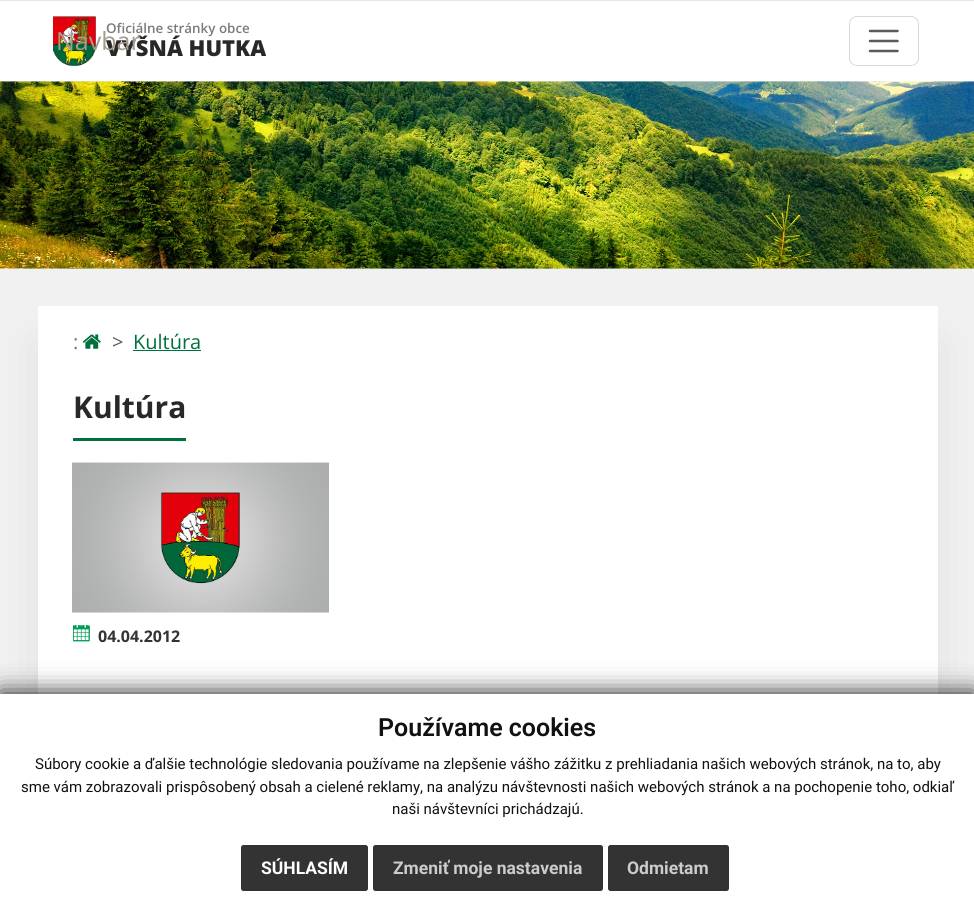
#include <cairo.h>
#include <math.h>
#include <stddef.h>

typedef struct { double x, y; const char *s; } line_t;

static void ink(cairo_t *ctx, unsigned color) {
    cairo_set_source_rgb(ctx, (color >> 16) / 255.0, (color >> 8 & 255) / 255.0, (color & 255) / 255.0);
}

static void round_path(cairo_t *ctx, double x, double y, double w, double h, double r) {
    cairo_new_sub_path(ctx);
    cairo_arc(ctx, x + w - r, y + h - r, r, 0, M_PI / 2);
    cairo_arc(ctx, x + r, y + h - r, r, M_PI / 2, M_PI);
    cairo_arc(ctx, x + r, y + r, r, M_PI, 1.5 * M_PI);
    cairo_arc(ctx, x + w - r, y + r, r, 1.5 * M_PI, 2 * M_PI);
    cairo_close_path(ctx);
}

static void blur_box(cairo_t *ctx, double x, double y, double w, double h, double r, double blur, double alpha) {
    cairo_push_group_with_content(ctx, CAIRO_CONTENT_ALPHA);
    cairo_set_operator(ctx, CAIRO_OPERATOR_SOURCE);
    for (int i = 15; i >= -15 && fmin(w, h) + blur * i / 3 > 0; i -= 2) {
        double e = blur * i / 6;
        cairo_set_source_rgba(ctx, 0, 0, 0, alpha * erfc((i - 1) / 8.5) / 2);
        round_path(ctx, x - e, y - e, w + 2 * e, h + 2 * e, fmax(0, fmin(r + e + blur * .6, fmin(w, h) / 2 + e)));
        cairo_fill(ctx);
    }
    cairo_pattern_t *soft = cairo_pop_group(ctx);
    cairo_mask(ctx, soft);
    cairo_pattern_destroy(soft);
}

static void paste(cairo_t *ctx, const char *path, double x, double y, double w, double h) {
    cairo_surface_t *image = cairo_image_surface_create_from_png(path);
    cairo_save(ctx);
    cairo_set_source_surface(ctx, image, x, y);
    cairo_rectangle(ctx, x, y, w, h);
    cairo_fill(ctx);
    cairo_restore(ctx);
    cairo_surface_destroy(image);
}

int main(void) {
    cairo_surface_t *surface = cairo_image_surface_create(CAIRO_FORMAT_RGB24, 974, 902);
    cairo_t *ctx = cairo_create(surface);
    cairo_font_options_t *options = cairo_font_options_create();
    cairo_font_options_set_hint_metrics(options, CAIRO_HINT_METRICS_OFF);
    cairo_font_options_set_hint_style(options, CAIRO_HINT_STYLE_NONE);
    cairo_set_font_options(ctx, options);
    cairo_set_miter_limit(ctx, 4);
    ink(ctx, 0xF1F1F1);
    cairo_paint(ctx);
    ink(ctx, 0xFFFFFF);
    cairo_rectangle(ctx, 0, 1, 974, 80);
    cairo_fill(ctx);
    ink(ctx, 0xE6E6E6);
    cairo_rectangle(ctx, 0, 0, 974, 1);
    cairo_fill(ctx);
    paste(ctx, "media/1.png", 53, 16, 43, 50);
    cairo_select_font_face(ctx, "Open Sans ExtraBold", CAIRO_FONT_SLANT_NORMAL, CAIRO_FONT_WEIGHT_NORMAL);
    cairo_set_font_size(ctx, 22);
    ink(ctx, 0x282828);
    cairo_move_to(ctx, 106, 56);
    cairo_show_text(ctx, "VYŠNÁ HUTKA");
    cairo_select_font_face(ctx, "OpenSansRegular", CAIRO_FONT_SLANT_NORMAL, CAIRO_FONT_WEIGHT_NORMAL);
    cairo_set_font_size(ctx, 25);
    ink(ctx, 0xA69B8C);
    cairo_move_to(ctx, 56, 50);
    cairo_show_text(ctx, "Navbar");
    round_path(ctx, 849.5, 16.5, 69, 49, 7.5);
    ink(ctx, 0xD9D9D9);
    cairo_set_line_width(ctx, 1);
    cairo_stroke(ctx);
    cairo_new_path(ctx);
    cairo_move_to(ctx, 870, 31);
    cairo_line_to(ctx, 897.5, 31);
    cairo_move_to(ctx, 870, 41);
    cairo_line_to(ctx, 897.5, 41);
    cairo_move_to(ctx, 870, 51);
    cairo_line_to(ctx, 897.5, 51);
    ink(ctx, 0x595C5F);
    cairo_set_line_width(ctx, 2.5);
    cairo_set_line_cap(ctx, CAIRO_LINE_CAP_ROUND);
    cairo_stroke(ctx);
    cairo_select_font_face(ctx, "Open Sans SemiBold", CAIRO_FONT_SLANT_NORMAL, CAIRO_FONT_WEIGHT_NORMAL);
    cairo_set_font_size(ctx, 13.4);
    ink(ctx, 0x7B7B7B);
    cairo_move_to(ctx, 106, 33);
    cairo_show_text(ctx, "Oficiálne stránky obce");
    paste(ctx, "media/2.png", 0, 81, 974, 188);
    ink(ctx, 0x000000);
    blur_box(ctx, 38, 344, 900, 477, 0, 25, 0.07);
    ink(ctx, 0xFFFFFF);
    cairo_rectangle(ctx, 38, 306, 900, 388);
    cairo_fill(ctx);
    cairo_select_font_face(ctx, "OpenSansRegular", CAIRO_FONT_SLANT_NORMAL, CAIRO_FONT_WEIGHT_NORMAL);
    cairo_set_font_size(ctx, 20);
    ink(ctx, 0x7B7B7B);
    cairo_move_to(ctx, 73, 349);
    cairo_show_text(ctx, ":");
    paste(ctx, "media/3.png", 82, 334, 19, 15);
    ink(ctx, 0x595C5F);
    cairo_move_to(ctx, 112, 349);
    cairo_show_text(ctx, ">");
    ink(ctx, 0x00703C);
    cairo_move_to(ctx, 133, 349);
    cairo_show_text(ctx, "Kultúra");
    cairo_rectangle(ctx, 133, 350, 68, 1);
    cairo_fill(ctx);
    cairo_rectangle(ctx, 73, 438, 113, 3);
    cairo_fill(ctx);
    cairo_select_font_face(ctx, "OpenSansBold", CAIRO_FONT_SLANT_NORMAL, CAIRO_FONT_WEIGHT_BOLD);
    cairo_set_font_size(ctx, 30);
    ink(ctx, 0x282828);
    cairo_move_to(ctx, 73, 418);
    cairo_show_text(ctx, "Kultúra");
    paste(ctx, "media/4.png", 72, 462, 257, 151);
    paste(ctx, "media/5.png", 73, 625, 17, 17);
    cairo_set_font_size(ctx, 16);
    ink(ctx, 0x333333);
    cairo_move_to(ctx, 98, 642);
    cairo_show_text(ctx, "04.04.2012");
    ink(ctx, 0x111111);
    blur_box(ctx, 0, 694, 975, 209, 0, 12.5, 1);
    ink(ctx, 0xFFFFFF);
    cairo_rectangle(ctx, 0, 694, 974, 208);
    cairo_fill(ctx);
    cairo_select_font_face(ctx, "Roboto SemiBold", CAIRO_FONT_SLANT_NORMAL, CAIRO_FONT_WEIGHT_NORMAL);
    cairo_set_font_size(ctx, 25);
    ink(ctx, 0x111111);
    cairo_move_to(ctx, 378, 736);
    cairo_show_text(ctx, "Používame cookies");
    cairo_select_font_face(ctx, "Roboto", CAIRO_FONT_SLANT_NORMAL, CAIRO_FONT_WEIGHT_NORMAL);
    cairo_set_font_size(ctx, 15);
    {
        static const line_t items[] = {
            {35, 769, "Súbory cookie a ďalšie technológie sledovania používame na zlepšenie vášho zážitku z prehliadania našich webových stránok, na to, aby"},
            {21, 792, "sme vám zobrazovali prispôsobený obsah a cielené reklamy, na analýzu návštevnosti našich webových stránok a na pochopenie toho, odkiaľ"},
            {392, 814, "naši návštevníci prichádzajú."},
        };
        for (size_t i = 0; i < sizeof items / sizeof *items; i++) {
            cairo_move_to(ctx, items[i].x, items[i].y);
            cairo_show_text(ctx, items[i].s);
        }
    }
    ink(ctx, 0x333333);
    round_path(ctx, 241, 845, 127, 46, 2.5);
    cairo_fill(ctx);
    cairo_select_font_face(ctx, "Roboto", CAIRO_FONT_SLANT_NORMAL, CAIRO_FONT_WEIGHT_BOLD);
    cairo_set_font_size(ctx, 17.5);
    ink(ctx, 0xFFFFFF);
    cairo_move_to(ctx, 261, 874);
    cairo_show_text(ctx, "SÚHLASÍM");
    ink(ctx, 0x333333);
    round_path(ctx, 373, 845, 230, 46, 2.5);
    cairo_fill(ctx);
    ink(ctx, 0xCCCCCC);
    cairo_move_to(ctx, 393, 874);
    cairo_show_text(ctx, "Zmeniť moje nastavenia");
    ink(ctx, 0x333333);
    round_path(ctx, 608, 845, 121, 46, 2.5);
    cairo_fill(ctx);
    ink(ctx, 0xCCCCCC);
    cairo_move_to(ctx, 627, 874);
    cairo_show_text(ctx, "Odmietam");
    cairo_surface_write_to_png(surface, "image.png");
    cairo_font_options_destroy(options);
    cairo_destroy(ctx);
    cairo_surface_destroy(surface);
    return 0;
}
